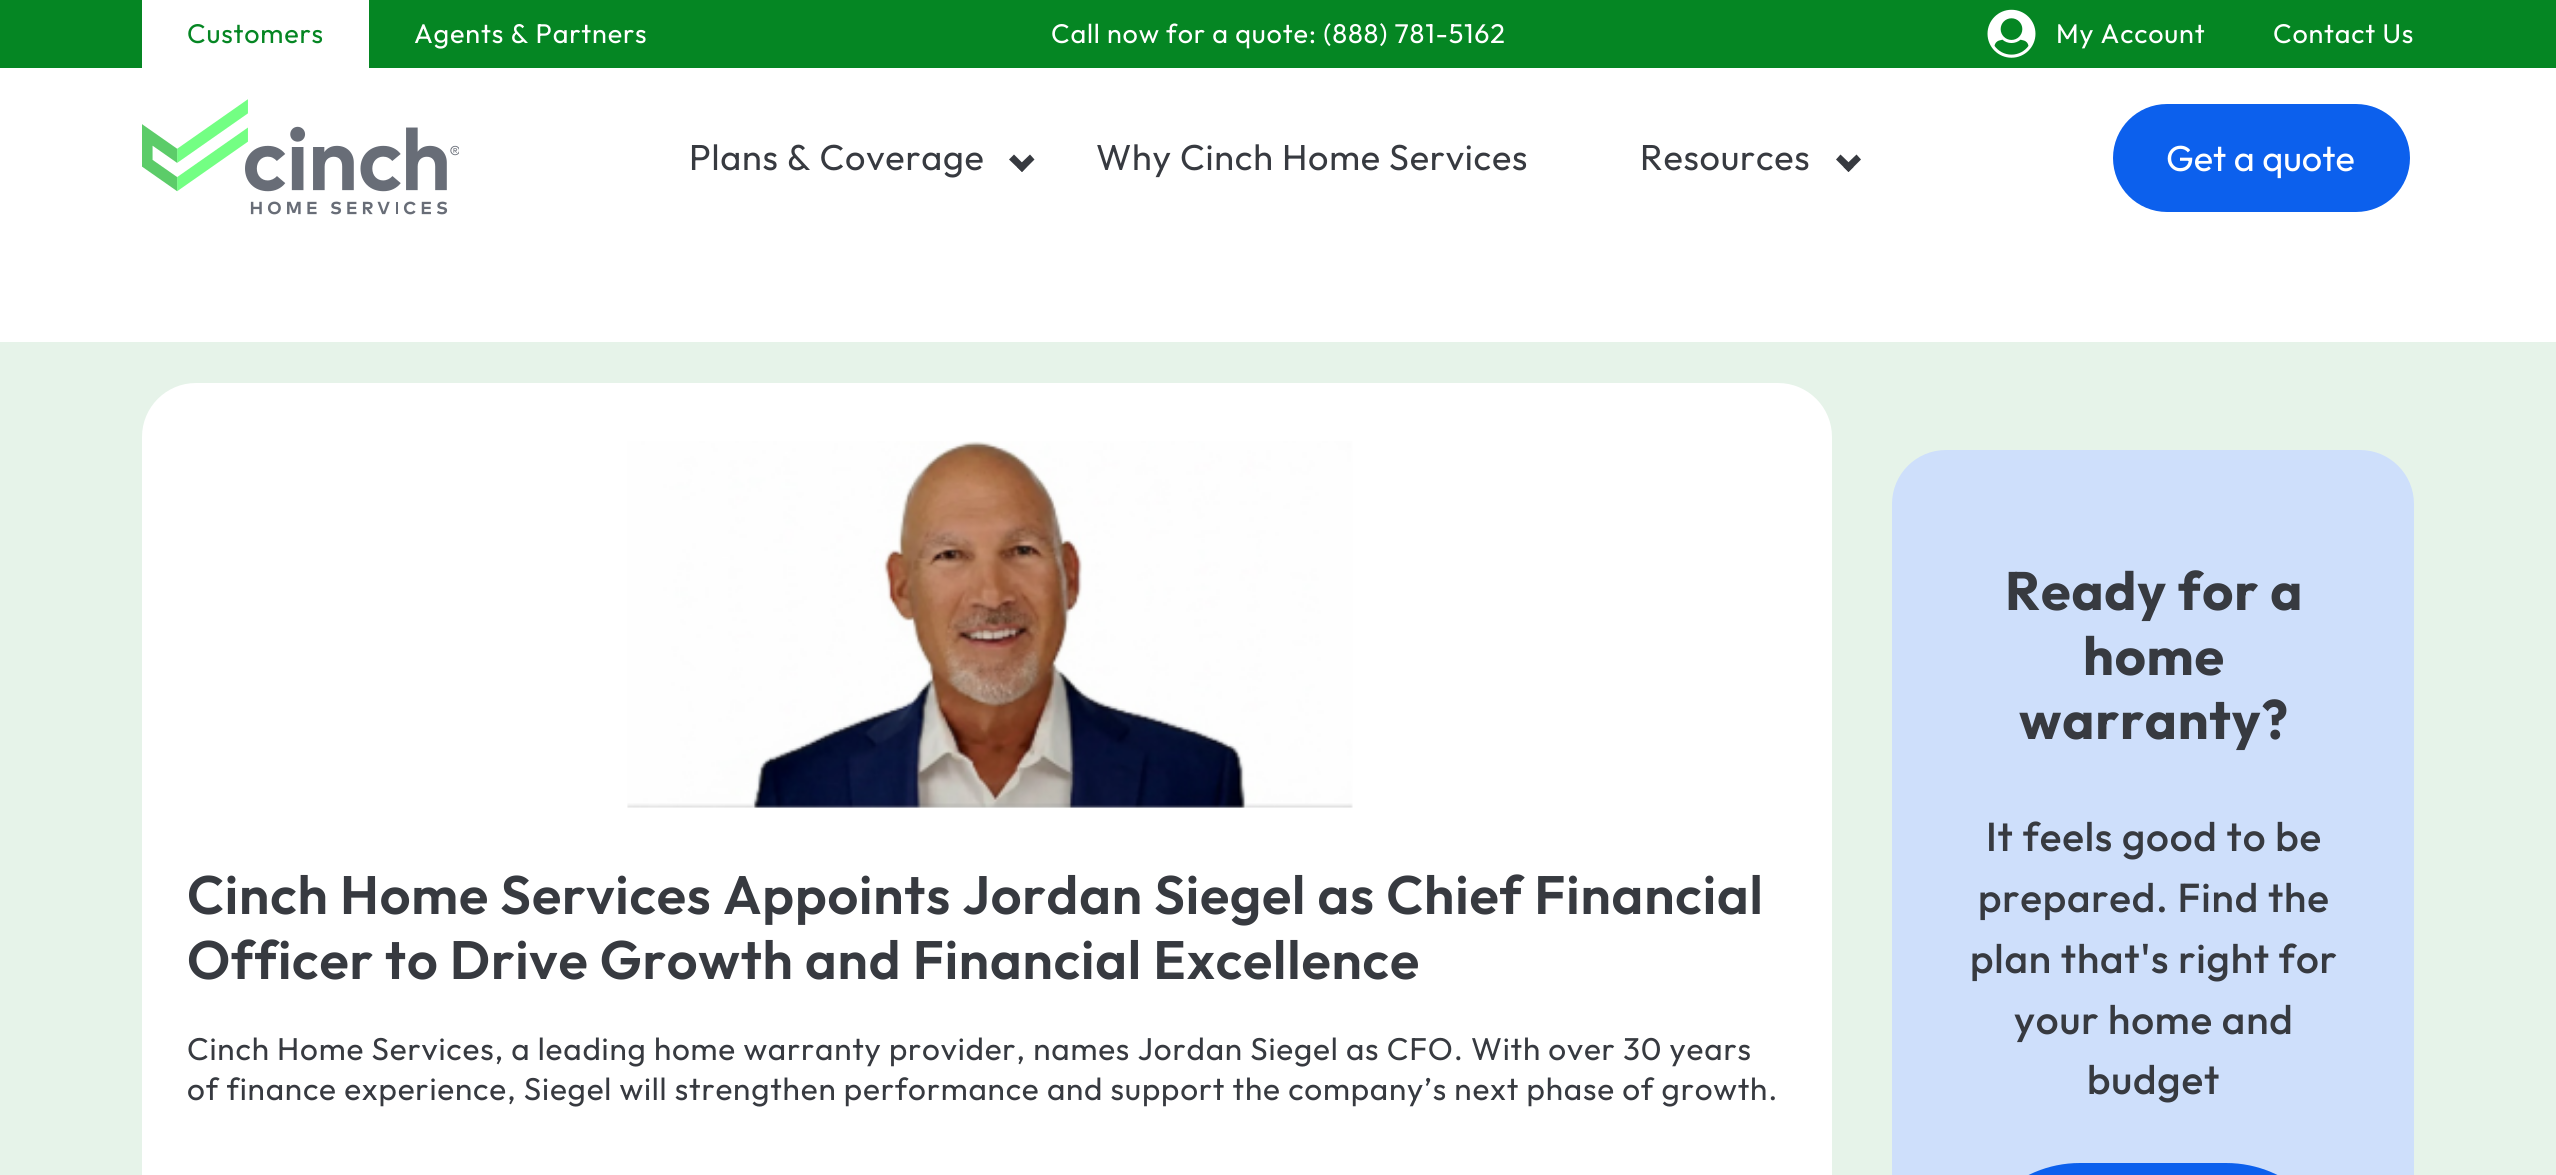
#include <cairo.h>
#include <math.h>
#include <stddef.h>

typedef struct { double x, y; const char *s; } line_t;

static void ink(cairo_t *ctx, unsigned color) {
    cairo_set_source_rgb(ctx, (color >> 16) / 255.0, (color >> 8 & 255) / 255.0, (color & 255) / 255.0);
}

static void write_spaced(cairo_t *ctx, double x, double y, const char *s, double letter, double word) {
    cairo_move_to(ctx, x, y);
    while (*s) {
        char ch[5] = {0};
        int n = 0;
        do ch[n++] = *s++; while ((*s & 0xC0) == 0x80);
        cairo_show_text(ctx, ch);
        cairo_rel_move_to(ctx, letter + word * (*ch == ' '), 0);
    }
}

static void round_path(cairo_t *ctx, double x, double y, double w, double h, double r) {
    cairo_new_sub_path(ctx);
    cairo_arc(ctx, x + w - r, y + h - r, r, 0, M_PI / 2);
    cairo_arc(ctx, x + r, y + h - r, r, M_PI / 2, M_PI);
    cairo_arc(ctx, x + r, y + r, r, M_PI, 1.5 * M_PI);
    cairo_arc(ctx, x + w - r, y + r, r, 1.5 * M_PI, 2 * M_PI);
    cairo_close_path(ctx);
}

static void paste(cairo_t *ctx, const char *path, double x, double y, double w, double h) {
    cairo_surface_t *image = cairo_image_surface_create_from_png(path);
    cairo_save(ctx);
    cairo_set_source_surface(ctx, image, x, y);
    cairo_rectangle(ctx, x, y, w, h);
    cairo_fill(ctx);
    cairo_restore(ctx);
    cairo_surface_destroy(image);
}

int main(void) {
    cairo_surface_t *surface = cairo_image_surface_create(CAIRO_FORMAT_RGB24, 2556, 1175);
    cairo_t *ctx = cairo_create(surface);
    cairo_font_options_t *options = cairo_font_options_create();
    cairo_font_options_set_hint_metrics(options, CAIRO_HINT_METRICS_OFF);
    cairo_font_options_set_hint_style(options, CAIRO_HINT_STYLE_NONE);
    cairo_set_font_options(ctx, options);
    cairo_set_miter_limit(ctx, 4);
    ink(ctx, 0xFFFFFF);
    cairo_paint(ctx);
    ink(ctx, 0x058623);
    cairo_rectangle(ctx, 0, 0, 2556, 68);
    cairo_fill(ctx);
    ink(ctx, 0xFFFFFF);
    cairo_rectangle(ctx, 142, 0, 227, 68);
    cairo_fill(ctx);
    cairo_select_font_face(ctx, "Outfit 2 Thin", CAIRO_FONT_SLANT_NORMAL, CAIRO_FONT_WEIGHT_NORMAL);
    cairo_set_font_size(ctx, 27);
    ink(ctx, 0x058623);
    write_spaced(ctx, 187, 43, "Customers", 0.81, 0);
    ink(ctx, 0xFFFFFF);
    write_spaced(ctx, 414, 43, "Agents & Partners", 0.81, 0);
    write_spaced(ctx, 1051, 43, "Call now for a quote: (888) 781-5162", 0.81, 0);
    paste(ctx, "media/1.png", 1987, 9, 49, 49);
    write_spaced(ctx, 2056, 43, "My Account", 0.81, 0);
    write_spaced(ctx, 2273, 43, "Contact Us", 0.81, 0);
    paste(ctx, "media/2.png", 142, 99, 317, 116);
    cairo_set_font_size(ctx, 36);
    ink(ctx, 0x373A40);
    write_spaced(ctx, 689, 170, "Plans & Coverage", 0.75, 0);
    cairo_new_path(ctx);
    cairo_move_to(ctx, 1030, 154.5);
    cairo_line_to(ctx, 1034.5, 159.5);
    cairo_line_to(ctx, 1022, 172);
    cairo_line_to(ctx, 1017, 167);
    cairo_close_path(ctx);
    cairo_fill(ctx);
    cairo_new_path(ctx);
    cairo_move_to(ctx, 1014, 154.5);
    cairo_line_to(ctx, 1026.5, 167);
    cairo_line_to(ctx, 1022, 172);
    cairo_line_to(ctx, 1009, 159.5);
    cairo_close_path(ctx);
    cairo_fill(ctx);
    write_spaced(ctx, 1096, 170, "Why Cinch Home Services", 0.75, 0);
    write_spaced(ctx, 1640, 170, "Resources", 0.75, 0);
    cairo_new_path(ctx);
    cairo_move_to(ctx, 1856.5, 154.5);
    cairo_line_to(ctx, 1861, 159.5);
    cairo_line_to(ctx, 1848.5, 172);
    cairo_line_to(ctx, 1843.5, 167);
    cairo_close_path(ctx);
    cairo_fill(ctx);
    cairo_new_path(ctx);
    cairo_move_to(ctx, 1840.5, 154.5);
    cairo_line_to(ctx, 1853.5, 167);
    cairo_line_to(ctx, 1848.5, 172);
    cairo_line_to(ctx, 1836, 159.5);
    cairo_close_path(ctx);
    cairo_fill(ctx);
    ink(ctx, 0x0C60ED);
    round_path(ctx, 2113, 104, 297, 108, 54);
    cairo_fill(ctx);
    ink(ctx, 0xFFFFFF);
    cairo_move_to(ctx, 2166, 171);
    cairo_show_text(ctx, "Get a quote");
    ink(ctx, 0xE6F3E9);
    cairo_rectangle(ctx, 0, 342, 2556, 833);
    cairo_fill(ctx);
    ink(ctx, 0xFFFFFF);
    round_path(ctx, 142, 383, 1690, 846, 54);
    cairo_fill(ctx);
    paste(ctx, "media/3.png", 627, 441, 726, 367);
    cairo_select_font_face(ctx, "Outfit SemiBold", CAIRO_FONT_SLANT_NORMAL, CAIRO_FONT_WEIGHT_NORMAL);
    cairo_set_font_size(ctx, 54);
    ink(ctx, 0x373A40);
    write_spaced(ctx, 187, 914, "Cinch Home Services Appoints Jordan Siegel as Chief Financial", 0.81, 0);
    write_spaced(ctx, 187, 979, "Officer to Drive Growth and Financial Excellence", 0.81, 0);
    cairo_select_font_face(ctx, "Outfit 2 Thin", CAIRO_FONT_SLANT_NORMAL, CAIRO_FONT_WEIGHT_NORMAL);
    cairo_set_font_size(ctx, 31.5);
    write_spaced(ctx, 187, 1060, "Cinch Home Services, a leading home warranty provider, names Jordan Siegel as CFO. With over 30 years", 0.81, 0);
    write_spaced(ctx, 187, 1100, "of finance experience, Siegel will strengthen performance and support the company’s next phase of growth.", 0.81, 0);
    ink(ctx, 0xCEDFFB);
    round_path(ctx, 1892, 450, 522, 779, 54);
    cairo_fill(ctx);
    cairo_select_font_face(ctx, "Outfit Thin", CAIRO_FONT_SLANT_NORMAL, CAIRO_FONT_WEIGHT_NORMAL);
    cairo_set_font_size(ctx, 54);
    ink(ctx, 0x373A40);
    {
        static const line_t items[] = {
            {2005, 610, "Ready for a"},
            {2083, 675, "home"},
            {2019, 739, "warranty?"},
        };
        for (size_t i = 0; i < sizeof items / sizeof *items; i++) {
            write_spaced(ctx, items[i].x, items[i].y, items[i].s, 0.81, 0);
        }
    }
    cairo_select_font_face(ctx, "Outfit Medium", CAIRO_FONT_SLANT_NORMAL, CAIRO_FONT_WEIGHT_NORMAL);
    cairo_set_font_size(ctx, 40.5);
    {
        static const line_t items[] = {
            {1986, 851, "It feels good to be"},
            {1978, 912, "prepared. Find the"},
            {1970, 973, "plan that's right for"},
            {2014, 1034, "your home and"},
            {2087, 1094, "budget"},
        };
        for (size_t i = 0; i < sizeof items / sizeof *items; i++) {
            write_spaced(ctx, items[i].x, items[i].y, items[i].s, 0.81, 0);
        }
    }
    ink(ctx, 0x0C60ED);
    round_path(ctx, 1964, 1163, 378, 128, 116);
    cairo_fill(ctx);
    cairo_surface_write_to_png(surface, "image.png");
    cairo_font_options_destroy(options);
    cairo_destroy(ctx);
    cairo_surface_destroy(surface);
    return 0;
}
